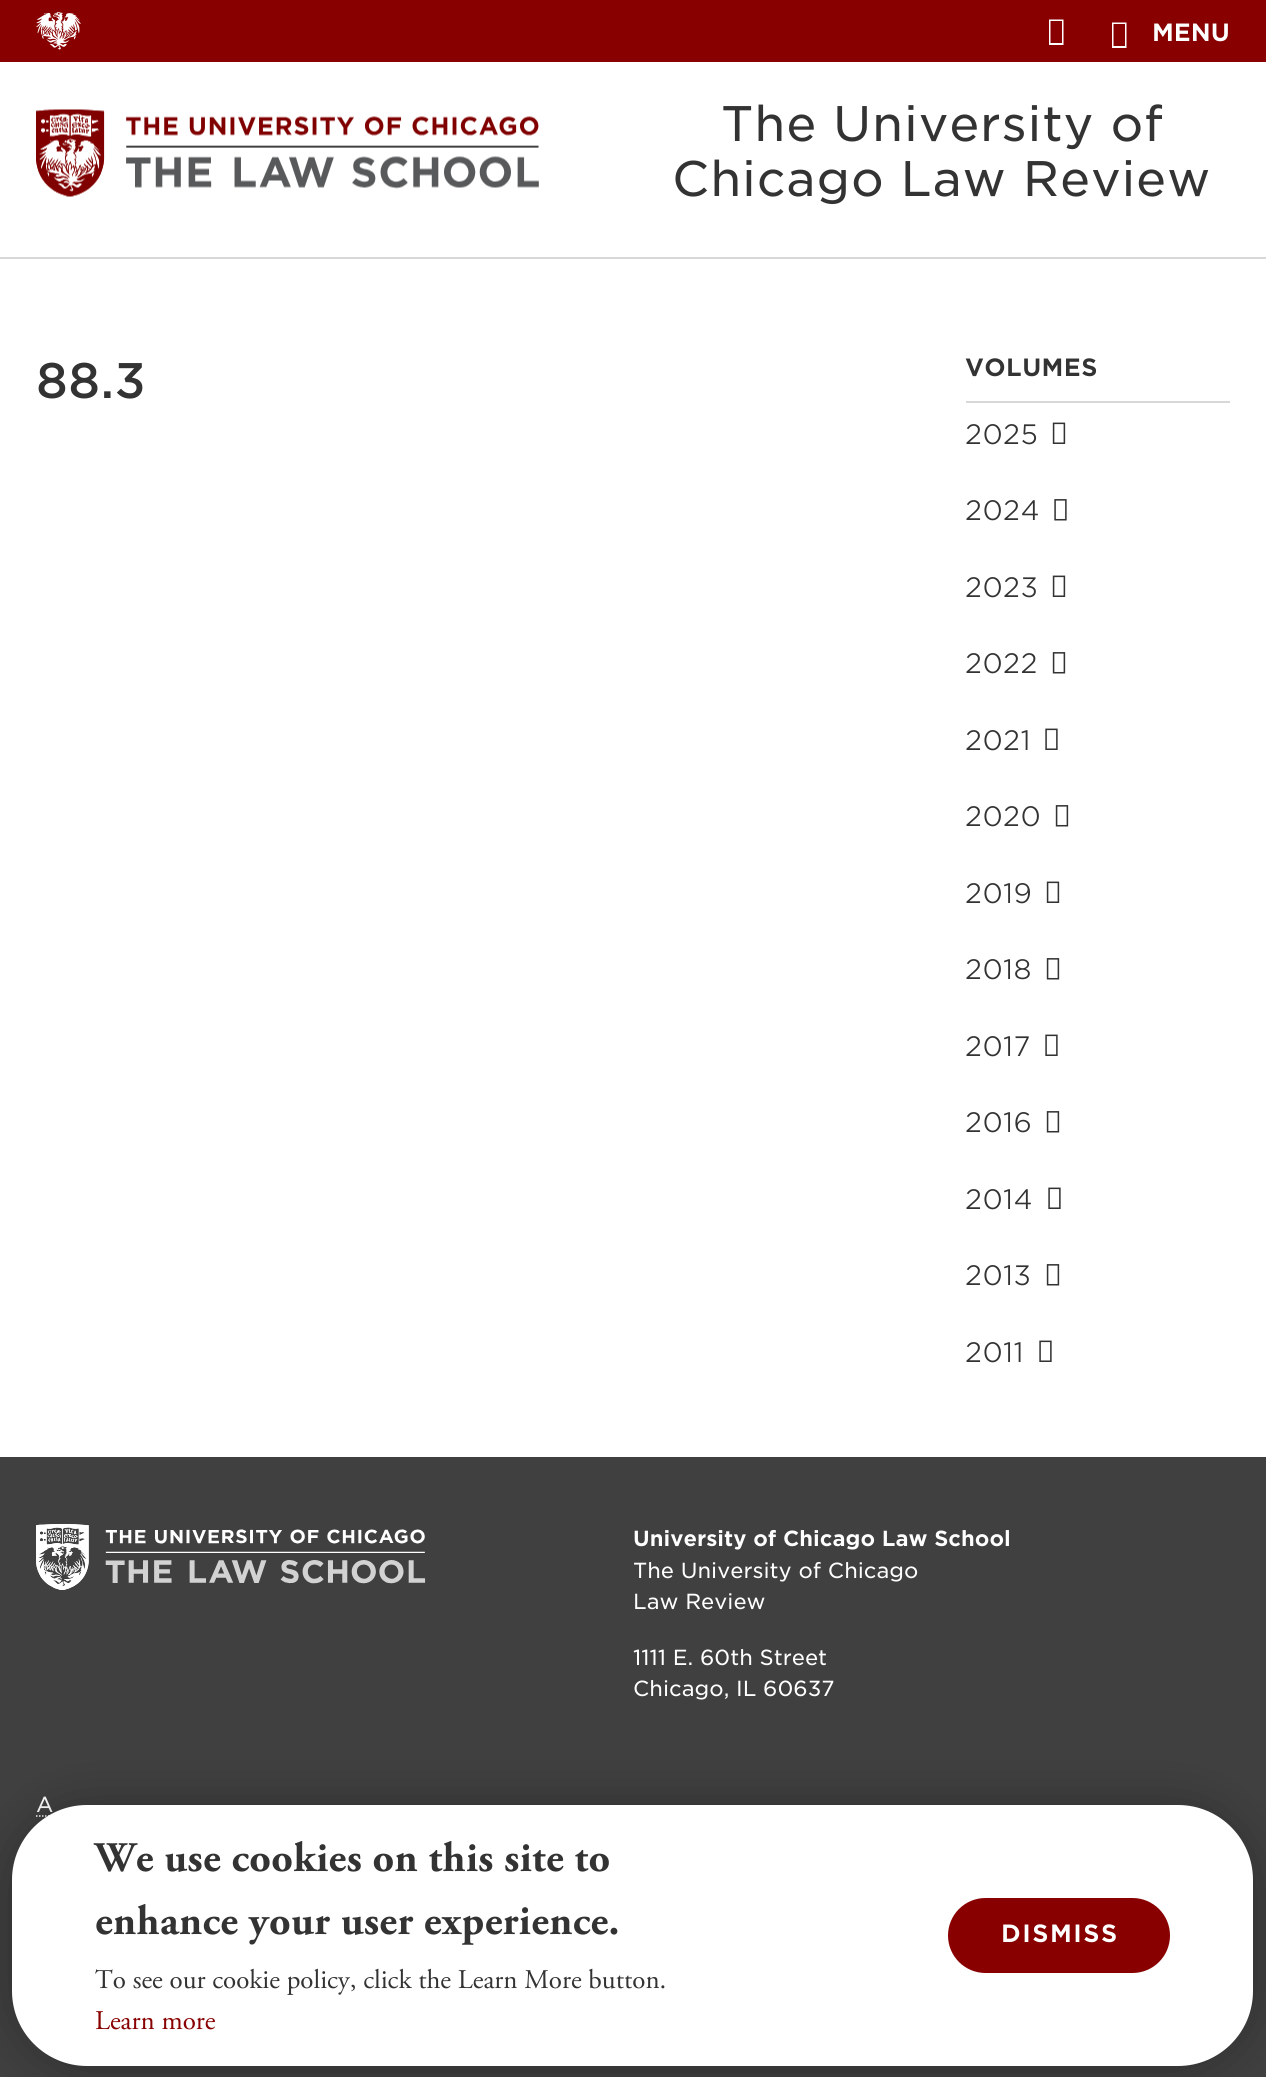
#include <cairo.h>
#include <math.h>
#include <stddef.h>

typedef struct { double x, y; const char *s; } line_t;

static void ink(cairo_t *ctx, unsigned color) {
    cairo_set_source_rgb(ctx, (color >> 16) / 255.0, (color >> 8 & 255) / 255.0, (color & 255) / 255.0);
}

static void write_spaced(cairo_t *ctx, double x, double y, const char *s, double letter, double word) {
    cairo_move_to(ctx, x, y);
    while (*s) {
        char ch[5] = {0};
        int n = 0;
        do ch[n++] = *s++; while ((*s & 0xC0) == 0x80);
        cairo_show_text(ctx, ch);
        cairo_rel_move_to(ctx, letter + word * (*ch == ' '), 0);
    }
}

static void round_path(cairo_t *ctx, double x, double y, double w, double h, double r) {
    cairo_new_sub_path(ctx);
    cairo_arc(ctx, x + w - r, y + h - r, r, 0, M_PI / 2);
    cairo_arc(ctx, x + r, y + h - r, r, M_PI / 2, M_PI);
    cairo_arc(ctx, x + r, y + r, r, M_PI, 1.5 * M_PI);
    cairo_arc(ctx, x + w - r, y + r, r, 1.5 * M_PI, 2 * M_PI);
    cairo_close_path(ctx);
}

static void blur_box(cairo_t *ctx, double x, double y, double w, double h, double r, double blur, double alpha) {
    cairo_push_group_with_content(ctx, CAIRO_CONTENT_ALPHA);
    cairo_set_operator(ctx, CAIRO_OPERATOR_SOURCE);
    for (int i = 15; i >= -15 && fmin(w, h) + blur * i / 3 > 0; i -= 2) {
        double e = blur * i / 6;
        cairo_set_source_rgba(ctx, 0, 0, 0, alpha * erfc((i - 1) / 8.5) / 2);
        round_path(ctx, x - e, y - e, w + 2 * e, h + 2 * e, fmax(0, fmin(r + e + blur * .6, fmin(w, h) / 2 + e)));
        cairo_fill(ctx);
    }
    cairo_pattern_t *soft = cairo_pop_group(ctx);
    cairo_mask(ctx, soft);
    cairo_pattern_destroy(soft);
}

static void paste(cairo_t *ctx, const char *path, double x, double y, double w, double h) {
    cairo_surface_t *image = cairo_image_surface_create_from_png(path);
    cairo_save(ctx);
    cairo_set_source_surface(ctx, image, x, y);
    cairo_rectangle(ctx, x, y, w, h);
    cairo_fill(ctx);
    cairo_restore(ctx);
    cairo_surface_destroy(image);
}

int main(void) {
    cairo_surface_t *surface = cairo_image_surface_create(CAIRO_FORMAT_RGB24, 1266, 2077);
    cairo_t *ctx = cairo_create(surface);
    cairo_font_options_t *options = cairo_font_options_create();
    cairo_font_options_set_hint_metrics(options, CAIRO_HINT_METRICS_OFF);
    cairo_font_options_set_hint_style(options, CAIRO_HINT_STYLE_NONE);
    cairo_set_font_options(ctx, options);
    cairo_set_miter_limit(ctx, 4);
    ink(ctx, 0xFFFFFF);
    cairo_paint(ctx);
    ink(ctx, 0xD8D8D8);
    cairo_rectangle(ctx, 0, 257, 1266, 2);
    cairo_fill(ctx);
    ink(ctx, 0x880000);
    cairo_rectangle(ctx, 0, 0, 1266, 62);
    cairo_fill(ctx);
    paste(ctx, "media/1.png", 36, 12, 45, 38);
    ink(ctx, 0xFFFFFF);
    cairo_new_path(ctx);
    cairo_move_to(ctx, 1049, 45);
    cairo_line_to(ctx, 1049, 19.5);
    cairo_line_to(ctx, 1063.5, 19.5);
    cairo_line_to(ctx, 1063.5, 45);
    cairo_close_path(ctx);
    cairo_move_to(ctx, 1050.5, 43);
    cairo_line_to(ctx, 1062, 43);
    cairo_line_to(ctx, 1062, 21);
    cairo_line_to(ctx, 1050.5, 21);
    cairo_close_path(ctx);
    cairo_fill(ctx);
    cairo_new_path(ctx);
    cairo_move_to(ctx, 1112, 48);
    cairo_line_to(ctx, 1112, 22.5);
    cairo_line_to(ctx, 1126.5, 22.5);
    cairo_line_to(ctx, 1126.5, 48);
    cairo_close_path(ctx);
    cairo_move_to(ctx, 1113.5, 46);
    cairo_line_to(ctx, 1125, 46);
    cairo_line_to(ctx, 1125, 24);
    cairo_line_to(ctx, 1113.5, 24);
    cairo_close_path(ctx);
    cairo_fill(ctx);
    cairo_select_font_face(ctx, "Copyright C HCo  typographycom", CAIRO_FONT_SLANT_NORMAL, CAIRO_FONT_WEIGHT_NORMAL);
    cairo_set_font_size(ctx, 24);
    cairo_move_to(ctx, 1152, 41);
    cairo_show_text(ctx, "MENU");
    paste(ctx, "media/2.png", 36, 109, 503, 88);
    cairo_select_font_face(ctx, "Copyright C HCo  typographycom Light", CAIRO_FONT_SLANT_NORMAL, CAIRO_FONT_WEIGHT_NORMAL);
    cairo_set_font_size(ctx, 48);
    ink(ctx, 0x333333);
    write_spaced(ctx, 721, 141, "The University of", 0.75, 0);
    write_spaced(ctx, 672, 196, "Chicago Law Review", 0.75, 0);
    cairo_select_font_face(ctx, "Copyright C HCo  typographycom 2 Light", CAIRO_FONT_SLANT_NORMAL, CAIRO_FONT_WEIGHT_NORMAL);
    write_spaced(ctx, 36, 398, "88.3", 0.4, 0);
    ink(ctx, 0xD8D8D8);
    cairo_rectangle(ctx, 966, 401, 264, 2);
    cairo_fill(ctx);
    cairo_select_font_face(ctx, "Copyright C HCo  typographycom", CAIRO_FONT_SLANT_NORMAL, CAIRO_FONT_WEIGHT_NORMAL);
    cairo_set_font_size(ctx, 24);
    ink(ctx, 0x333333);
    write_spaced(ctx, 965, 376, "VOLUMES", 0.4, 0);
    cairo_select_font_face(ctx, "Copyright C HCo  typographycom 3 Light", CAIRO_FONT_SLANT_NORMAL, CAIRO_FONT_WEIGHT_NORMAL);
    cairo_set_font_size(ctx, 27);
    write_spaced(ctx, 965, 444, "2025", 0.4, 0);
    paste(ctx, "media/3.png", 1052, 422, 14, 22);
    write_spaced(ctx, 965, 520, "2024", 0.4, 0);
    paste(ctx, "media/4.png", 1054, 499, 13, 22);
    write_spaced(ctx, 965, 597, "2023", 0.4, 0);
    paste(ctx, "media/3.png", 1052, 575, 14, 22);
    write_spaced(ctx, 965, 673, "2022", 0.4, 0);
    paste(ctx, "media/5.png", 1052, 652, 14, 22);
    write_spaced(ctx, 965, 750, "2021", 0.4, 0);
    paste(ctx, "media/6.png", 1045, 728, 13, 22);
    write_spaced(ctx, 965, 826, "2020", 0.4, 0);
    paste(ctx, "media/5.png", 1055, 805, 14, 22);
    write_spaced(ctx, 965, 903, "2019", 0.4, 0);
    paste(ctx, "media/3.png", 1046, 881, 14, 22);
    write_spaced(ctx, 965, 979, "2018", 0.4, 0);
    paste(ctx, "media/5.png", 1046, 958, 14, 22);
    write_spaced(ctx, 965, 1056, "2017", 0.4, 0);
    paste(ctx, "media/6.png", 1045, 1034, 13, 22);
    write_spaced(ctx, 965, 1132, "2016", 0.4, 0);
    paste(ctx, "media/5.png", 1046, 1111, 14, 22);
    write_spaced(ctx, 965, 1209, "2014", 0.4, 0);
    paste(ctx, "media/6.png", 1048, 1187, 13, 22);
    write_spaced(ctx, 965, 1285, "2013", 0.4, 0);
    paste(ctx, "media/5.png", 1046, 1264, 14, 22);
    write_spaced(ctx, 965, 1362, "2011", 0.4, 0);
    paste(ctx, "media/6.png", 1039, 1340, 13, 22);
    ink(ctx, 0x404040);
    cairo_rectangle(ctx, 0, 1457, 1266, 620);
    cairo_fill(ctx);
    paste(ctx, "media/7.png", 36, 1524, 390, 66);
    cairo_select_font_face(ctx, "Copyright C HCo  typographycom", CAIRO_FONT_SLANT_NORMAL, CAIRO_FONT_WEIGHT_NORMAL);
    cairo_set_font_size(ctx, 21);
    ink(ctx, 0xFFFFFF);
    cairo_move_to(ctx, 633, 1546);
    cairo_show_text(ctx, "University of Chicago Law School");
    cairo_select_font_face(ctx, "Copyright C HCo  typographycom Light", CAIRO_FONT_SLANT_NORMAL, CAIRO_FONT_WEIGHT_NORMAL);
    {
        static const line_t items[] = {
            {633, 1578, "The University of Chicago"},
            {633, 1609, "Law Review"},
            {633, 1665, "1111 E. 60th Street"},
            {633, 1696, "Chicago, IL 60637"},
            {36, 1812, "A"},
        };
        for (size_t i = 0; i < sizeof items / sizeof *items; i++) {
            cairo_move_to(ctx, items[i].x, items[i].y);
            cairo_show_text(ctx, items[i].s);
        }
    }
    cairo_new_path(ctx);
    cairo_move_to(ctx, 36, 1816);
    cairo_line_to(ctx, 175, 1816);
    cairo_set_line_width(ctx, 1.5);
    cairo_set_dash(ctx, (double[]){1.5, 1.5}, 2, 0);
    cairo_stroke(ctx);
    ink(ctx, 0x000000);
    blur_box(ctx, 12, 1808, 1241, 261, 75, 25.5, 0.3);
    ink(ctx, 0xFFFFFF);
    round_path(ctx, 12, 1805, 1241, 261, 75);
    cairo_fill(ctx);
    cairo_select_font_face(ctx, "Adobe Garamond", CAIRO_FONT_SLANT_NORMAL, CAIRO_FONT_WEIGHT_BOLD);
    cairo_set_font_size(ctx, 42);
    ink(ctx, 0x333333);
    write_spaced(ctx, 95, 1871, "We use cookies on this site to", 0.4, 0);
    write_spaced(ctx, 95, 1934, "enhance your user experience.", 0.4, 0);
    cairo_select_font_face(ctx, "Adobe Garamond", CAIRO_FONT_SLANT_NORMAL, CAIRO_FONT_WEIGHT_NORMAL);
    cairo_set_font_size(ctx, 27);
    cairo_move_to(ctx, 95, 1988);
    cairo_show_text(ctx, "To see our cookie policy, click the Learn More button.");
    ink(ctx, 0x880000);
    cairo_move_to(ctx, 95, 2029);
    cairo_show_text(ctx, "Learn more");
    round_path(ctx, 950.5, 1900.5, 217, 70, 35);
    cairo_fill_preserve(ctx);
    cairo_set_line_width(ctx, 5);
    cairo_set_dash(ctx, NULL, 0, 0);
    cairo_stroke(ctx);
    cairo_select_font_face(ctx, "Copyright C HCo  typographycom", CAIRO_FONT_SLANT_NORMAL, CAIRO_FONT_WEIGHT_NORMAL);
    cairo_set_font_size(ctx, 24);
    ink(ctx, 0xFFFFFF);
    write_spaced(ctx, 1001, 1942, "DISMISS", 1.5, 0);
    cairo_surface_write_to_png(surface, "image.png");
    cairo_font_options_destroy(options);
    cairo_destroy(ctx);
    cairo_surface_destroy(surface);
    return 0;
}
